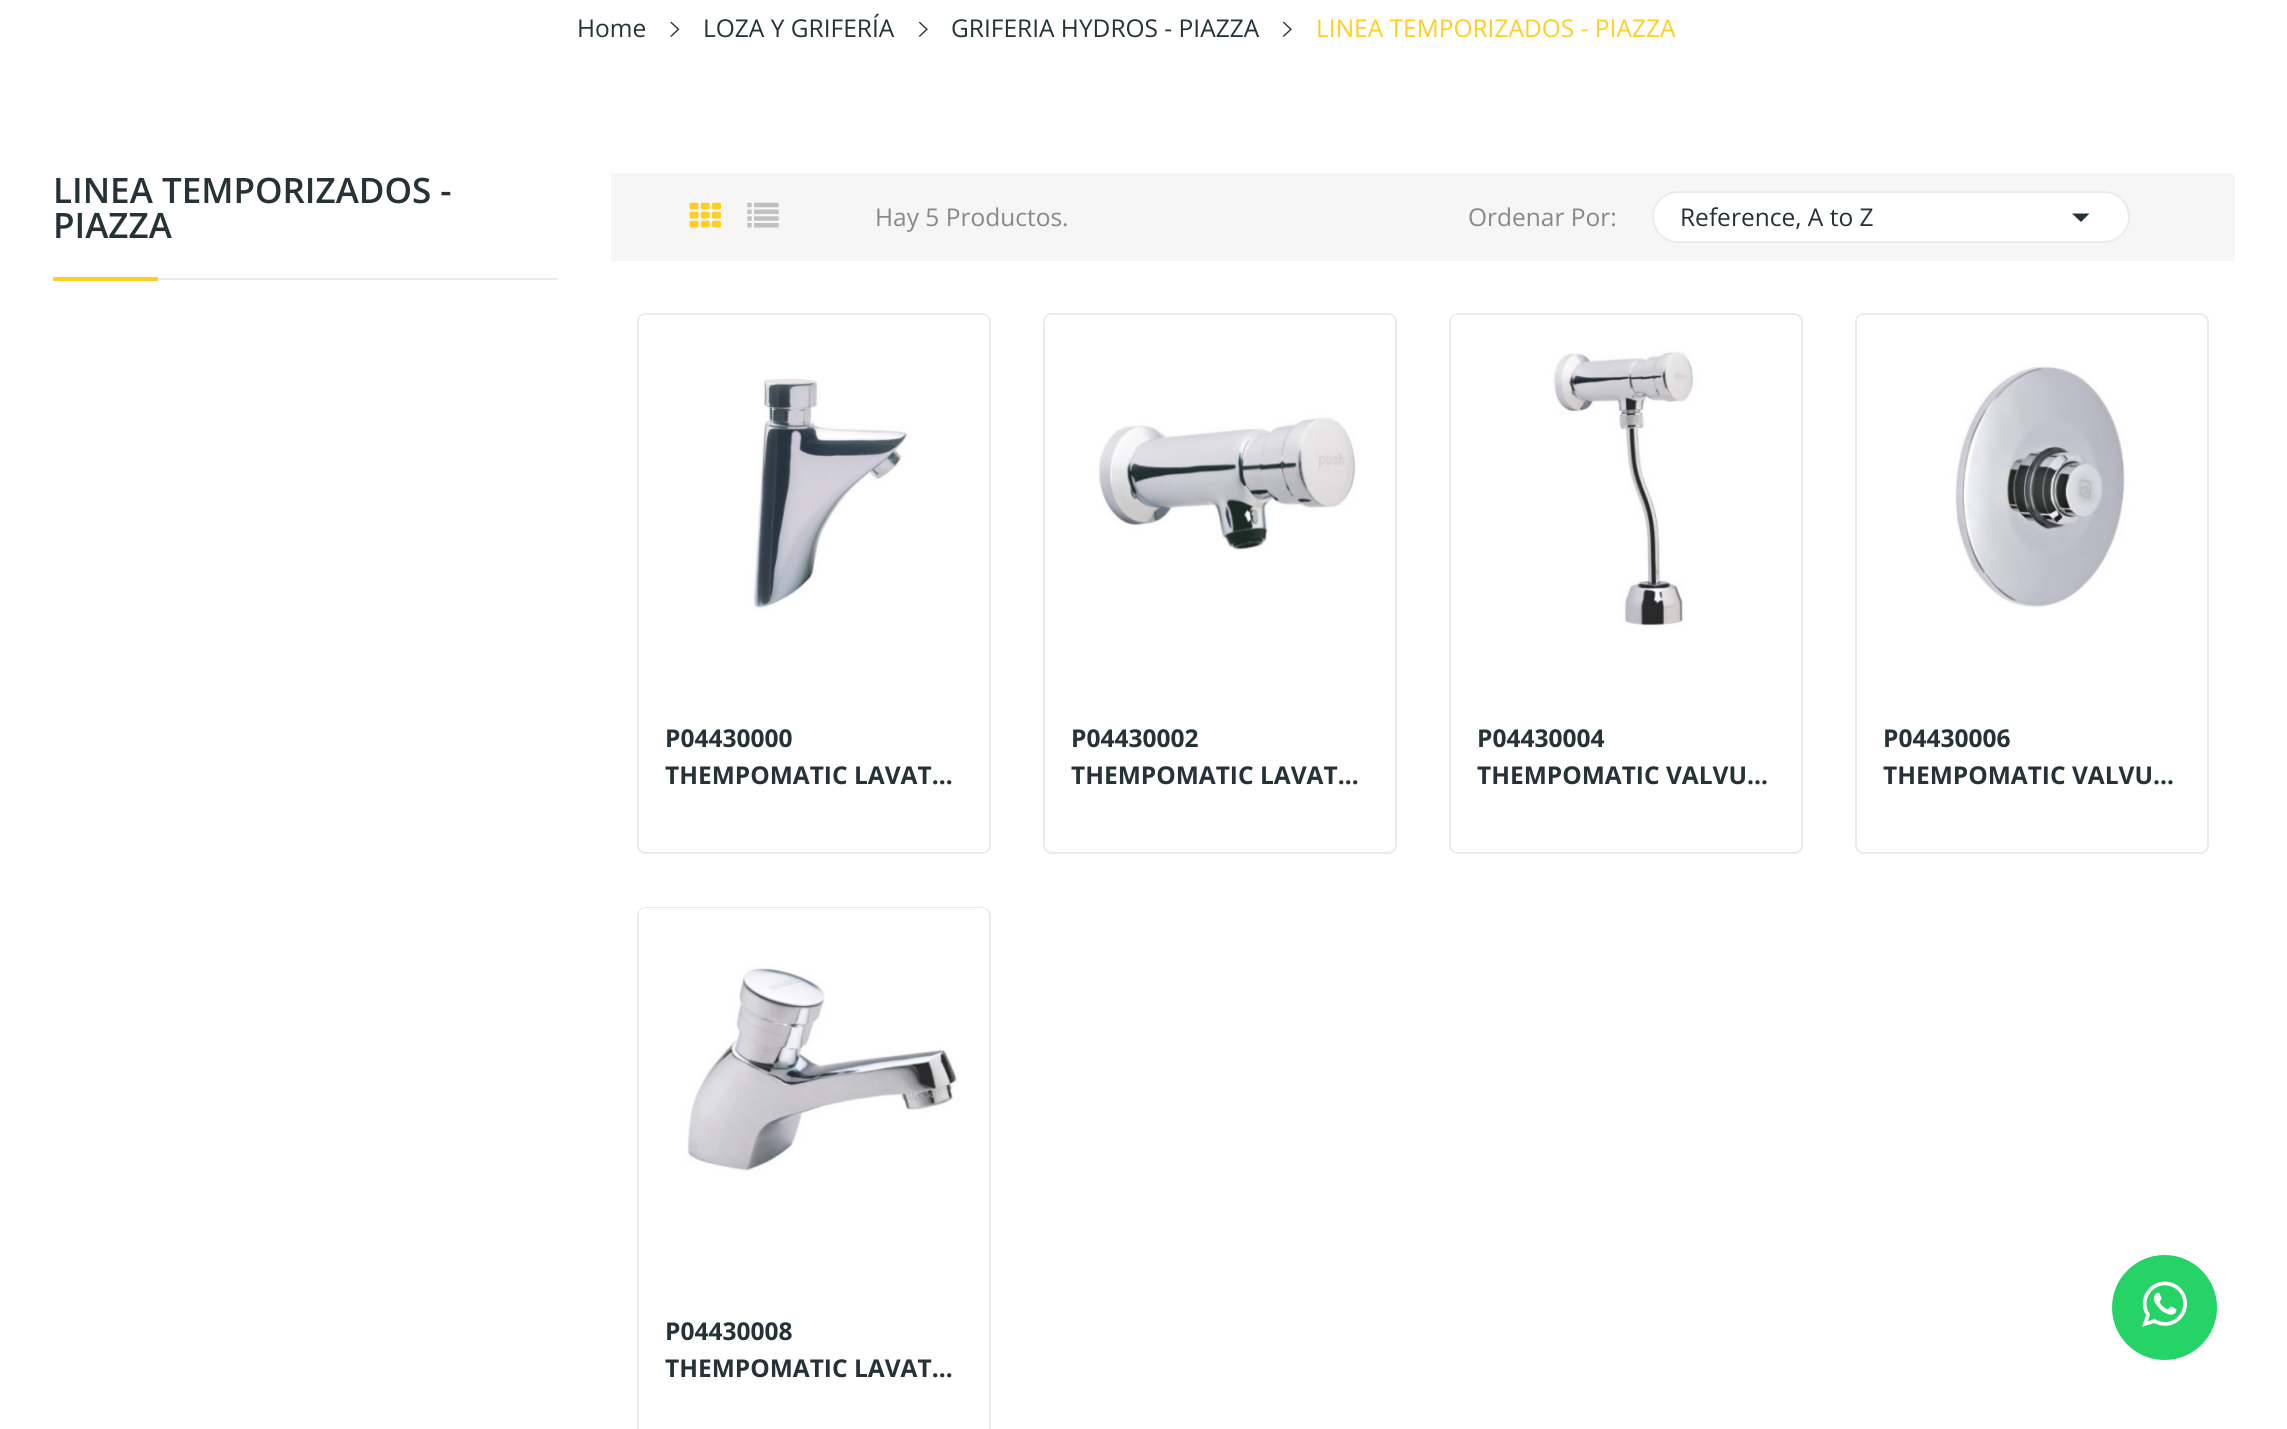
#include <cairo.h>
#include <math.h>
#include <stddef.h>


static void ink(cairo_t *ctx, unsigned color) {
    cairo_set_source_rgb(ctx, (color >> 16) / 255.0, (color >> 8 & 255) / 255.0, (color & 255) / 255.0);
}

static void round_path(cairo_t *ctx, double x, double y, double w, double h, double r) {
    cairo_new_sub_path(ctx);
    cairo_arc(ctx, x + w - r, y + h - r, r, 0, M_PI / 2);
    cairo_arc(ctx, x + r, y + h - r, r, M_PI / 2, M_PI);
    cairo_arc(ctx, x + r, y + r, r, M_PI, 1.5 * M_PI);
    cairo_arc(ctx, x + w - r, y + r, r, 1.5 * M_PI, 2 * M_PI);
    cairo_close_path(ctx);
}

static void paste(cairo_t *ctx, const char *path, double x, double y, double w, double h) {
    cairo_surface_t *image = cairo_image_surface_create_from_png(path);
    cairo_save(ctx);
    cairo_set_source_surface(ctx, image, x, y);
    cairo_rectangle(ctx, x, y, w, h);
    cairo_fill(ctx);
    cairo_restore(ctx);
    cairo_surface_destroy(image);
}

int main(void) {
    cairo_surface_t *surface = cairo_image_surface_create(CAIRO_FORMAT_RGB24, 2287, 1429);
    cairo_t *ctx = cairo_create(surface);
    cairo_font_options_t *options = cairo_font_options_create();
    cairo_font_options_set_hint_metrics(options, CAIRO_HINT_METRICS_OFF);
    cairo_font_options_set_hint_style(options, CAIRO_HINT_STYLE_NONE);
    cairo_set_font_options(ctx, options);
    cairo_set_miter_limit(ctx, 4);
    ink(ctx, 0xFFFFFF);
    cairo_paint(ctx);
    cairo_select_font_face(ctx, "Open Sans", CAIRO_FONT_SLANT_NORMAL, CAIRO_FONT_WEIGHT_NORMAL);
    cairo_set_font_size(ctx, 24.5);
    ink(ctx, 0x253237);
    cairo_move_to(ctx, 577, 37);
    cairo_show_text(ctx, "Home");
    paste(ctx, "media/1.png", 670, 21, 10, 16);
    cairo_move_to(ctx, 703, 37);
    cairo_show_text(ctx, "LOZA Y GRIFERÍA");
    paste(ctx, "media/2.png", 918, 21, 10, 16);
    cairo_move_to(ctx, 951, 37);
    cairo_show_text(ctx, "GRIFERIA HYDROS - PIAZZA");
    paste(ctx, "media/2.png", 1282, 21, 10, 16);
    ink(ctx, 0xFDCE23);
    cairo_move_to(ctx, 1316, 37);
    cairo_show_text(ctx, "LINEA TEMPORIZADOS - PIAZZA");
    ink(ctx, 0xEBEBEB);
    cairo_rectangle(ctx, 158, 278, 400, 2);
    cairo_fill(ctx);
    cairo_select_font_face(ctx, "Open Sans SemiBold", CAIRO_FONT_SLANT_NORMAL, CAIRO_FONT_WEIGHT_NORMAL);
    cairo_set_font_size(ctx, 35);
    ink(ctx, 0x253237);
    cairo_move_to(ctx, 53, 203);
    cairo_show_text(ctx, "LINEA TEMPORIZADOS -");
    cairo_move_to(ctx, 53, 238);
    cairo_show_text(ctx, "PIAZZA");
    ink(ctx, 0xFDCE23);
    cairo_rectangle(ctx, 53, 277, 105, 4);
    cairo_fill(ctx);
    ink(ctx, 0xF6F6F6);
    cairo_rectangle(ctx, 611, 173, 1624, 88);
    cairo_fill(ctx);
    paste(ctx, "media/3.png", 689, 202, 32, 26);
    paste(ctx, "media/4.png", 747, 202, 32, 26);
    cairo_select_font_face(ctx, "Open Sans", CAIRO_FONT_SLANT_NORMAL, CAIRO_FONT_WEIGHT_NORMAL);
    cairo_set_font_size(ctx, 24.5);
    ink(ctx, 0x888888);
    cairo_move_to(ctx, 875, 226);
    cairo_show_text(ctx, "Hay 5 Productos.");
    cairo_move_to(ctx, 1468, 226);
    cairo_show_text(ctx, "Ordenar Por:");
    ink(ctx, 0xFFFFFF);
    round_path(ctx, 1653, 192, 476, 50, 25);
    cairo_fill_preserve(ctx);
    ink(ctx, 0xEBEBEB);
    cairo_stroke(ctx);
    ink(ctx, 0x253237);
    cairo_move_to(ctx, 1680, 226);
    cairo_show_text(ctx, "Reference, A to Z");
    cairo_new_path(ctx);
    cairo_move_to(ctx, 2072, 213.5);
    cairo_line_to(ctx, 2089.5, 213.5);
    cairo_line_to(ctx, 2081, 222);
    cairo_close_path(ctx);
    cairo_fill(ctx);
    round_path(ctx, 638, 314, 352, 539, 8);
    ink(ctx, 0xEBEBEB);
    cairo_stroke(ctx);
    paste(ctx, "media/5.png", 639, 315, 348, 295);
    ink(ctx, 0xFFFFFF);
    cairo_new_path(ctx);
    cairo_move_to(ctx, 639, 665);
    cairo_line_to(ctx, 989, 665);
    cairo_line_to(ctx, 989, 845);
    cairo_curve_to(ctx, 989, 849, 986, 852, 982, 852);
    cairo_line_to(ctx, 646, 852);
    cairo_curve_to(ctx, 642, 852, 639, 849, 639, 845);
    cairo_close_path(ctx);
    cairo_fill(ctx);
    cairo_select_font_face(ctx, "Open Sans", CAIRO_FONT_SLANT_NORMAL, CAIRO_FONT_WEIGHT_BOLD);
    ink(ctx, 0x253237);
    cairo_move_to(ctx, 665, 747);
    cairo_show_text(ctx, "P04430000");
    cairo_move_to(ctx, 665, 784);
    cairo_show_text(ctx, "THEMPOMATIC LAVAT…");
    round_path(ctx, 1044, 314, 352, 539, 8);
    ink(ctx, 0xEBEBEB);
    cairo_stroke(ctx);
    paste(ctx, "media/6.png", 1045, 315, 348, 235);
    ink(ctx, 0xFFFFFF);
    cairo_new_path(ctx);
    cairo_move_to(ctx, 1045, 665);
    cairo_line_to(ctx, 1395, 665);
    cairo_line_to(ctx, 1395, 845);
    cairo_curve_to(ctx, 1395, 849, 1392, 852, 1388, 852);
    cairo_line_to(ctx, 1052, 852);
    cairo_curve_to(ctx, 1048, 852, 1045, 849, 1045, 845);
    cairo_close_path(ctx);
    cairo_fill(ctx);
    ink(ctx, 0x253237);
    cairo_move_to(ctx, 1071, 747);
    cairo_show_text(ctx, "P04430002");
    cairo_move_to(ctx, 1071, 784);
    cairo_show_text(ctx, "THEMPOMATIC LAVAT…");
    round_path(ctx, 1450, 314, 352, 539, 8);
    ink(ctx, 0xEBEBEB);
    cairo_stroke(ctx);
    paste(ctx, "media/7.png", 1451, 315, 348, 311);
    ink(ctx, 0xFFFFFF);
    cairo_new_path(ctx);
    cairo_move_to(ctx, 1451, 665);
    cairo_line_to(ctx, 1801, 665);
    cairo_line_to(ctx, 1801, 845);
    cairo_curve_to(ctx, 1801, 849, 1798, 852, 1794, 852);
    cairo_line_to(ctx, 1458, 852);
    cairo_curve_to(ctx, 1454, 852, 1451, 849, 1451, 845);
    cairo_close_path(ctx);
    cairo_fill(ctx);
    ink(ctx, 0x253237);
    cairo_move_to(ctx, 1477, 747);
    cairo_show_text(ctx, "P04430004");
    cairo_move_to(ctx, 1477, 784);
    cairo_show_text(ctx, "THEMPOMATIC VALVU…");
    round_path(ctx, 1856, 314, 352, 539, 8);
    ink(ctx, 0xEBEBEB);
    cairo_stroke(ctx);
    paste(ctx, "media/8.png", 1857, 315, 348, 293);
    ink(ctx, 0xFFFFFF);
    cairo_new_path(ctx);
    cairo_move_to(ctx, 1857, 665);
    cairo_line_to(ctx, 2207, 665);
    cairo_line_to(ctx, 2207, 845);
    cairo_curve_to(ctx, 2207, 849, 2204, 852, 2200, 852);
    cairo_line_to(ctx, 1864, 852);
    cairo_curve_to(ctx, 1860, 852, 1857, 849, 1857, 845);
    cairo_close_path(ctx);
    cairo_fill(ctx);
    ink(ctx, 0x253237);
    cairo_move_to(ctx, 1883, 747);
    cairo_show_text(ctx, "P04430006");
    cairo_move_to(ctx, 1883, 784);
    cairo_show_text(ctx, "THEMPOMATIC VALVU…");
    round_path(ctx, 638, 908, 352, 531, 8);
    ink(ctx, 0xEBEBEB);
    cairo_stroke(ctx);
    paste(ctx, "media/9.png", 639, 908, 349, 264);
    ink(ctx, 0x253237);
    cairo_move_to(ctx, 665, 1340);
    cairo_show_text(ctx, "P04430008");
    cairo_move_to(ctx, 665, 1377);
    cairo_show_text(ctx, "THEMPOMATIC LAVAT…");
    ink(ctx, 0x25D366);
    cairo_new_path(ctx);
    cairo_arc(ctx, 2164.5, 1307.5, 52.5, 0, 2 * M_PI);
    cairo_fill(ctx);
    paste(ctx, "media/10.png", 2142, 1281, 45, 46);
    cairo_surface_write_to_png(surface, "image.png");
    cairo_font_options_destroy(options);
    cairo_destroy(ctx);
    cairo_surface_destroy(surface);
    return 0;
}
